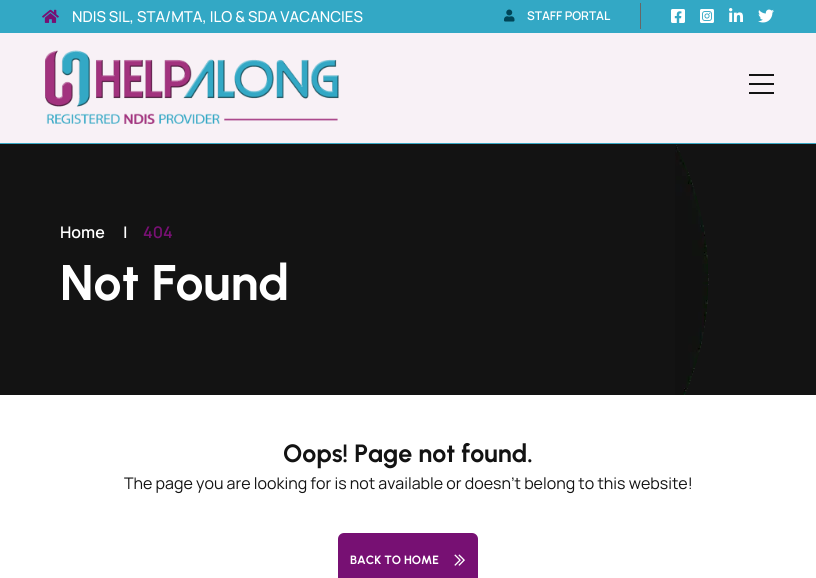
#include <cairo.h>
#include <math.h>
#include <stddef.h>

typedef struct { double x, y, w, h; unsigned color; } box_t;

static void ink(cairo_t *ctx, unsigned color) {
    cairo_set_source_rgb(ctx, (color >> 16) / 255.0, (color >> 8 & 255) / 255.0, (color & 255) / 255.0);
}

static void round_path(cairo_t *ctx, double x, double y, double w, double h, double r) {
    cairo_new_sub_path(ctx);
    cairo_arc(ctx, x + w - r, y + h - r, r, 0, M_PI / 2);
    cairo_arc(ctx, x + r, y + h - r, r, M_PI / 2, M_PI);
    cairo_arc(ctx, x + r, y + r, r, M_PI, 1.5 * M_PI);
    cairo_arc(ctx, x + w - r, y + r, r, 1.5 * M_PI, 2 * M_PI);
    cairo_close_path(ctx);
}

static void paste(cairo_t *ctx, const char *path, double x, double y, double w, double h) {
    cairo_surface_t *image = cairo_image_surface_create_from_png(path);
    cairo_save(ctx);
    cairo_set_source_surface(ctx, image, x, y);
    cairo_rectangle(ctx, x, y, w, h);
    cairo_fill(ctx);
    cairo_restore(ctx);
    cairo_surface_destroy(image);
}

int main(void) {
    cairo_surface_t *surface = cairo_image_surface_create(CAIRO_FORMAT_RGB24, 816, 578);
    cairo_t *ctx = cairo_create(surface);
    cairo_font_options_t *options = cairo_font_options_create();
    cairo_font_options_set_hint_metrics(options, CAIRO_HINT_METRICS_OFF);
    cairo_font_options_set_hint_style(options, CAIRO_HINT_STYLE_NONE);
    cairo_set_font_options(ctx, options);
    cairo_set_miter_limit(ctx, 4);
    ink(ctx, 0xFFFFFF);
    cairo_paint(ctx);
    ink(ctx, 0x33A8C5);
    cairo_rectangle(ctx, 0, 0, 816, 33);
    cairo_fill(ctx);
    paste(ctx, "media/1.png", 42, 9, 17, 14);
    cairo_select_font_face(ctx, "Manrope Medium", CAIRO_FONT_SLANT_NORMAL, CAIRO_FONT_WEIGHT_NORMAL);
    cairo_set_font_size(ctx, 15);
    ink(ctx, 0xFFFFFF);
    cairo_move_to(ctx, 72, 22);
    cairo_show_text(ctx, "NDIS SIL, STA/MTA, ILO & SDA VACANCIES");
    paste(ctx, "media/2.png", 504, 9, 11, 13);
    cairo_select_font_face(ctx, "Manrope SemiBold", CAIRO_FONT_SLANT_NORMAL, CAIRO_FONT_WEIGHT_NORMAL);
    cairo_set_font_size(ctx, 12);
    cairo_move_to(ctx, 527, 20);
    cairo_show_text(ctx, "STAFF PORTAL");
    ink(ctx, 0x676767);
    cairo_rectangle(ctx, 640, 3, 1, 26);
    cairo_fill(ctx);
    paste(ctx, "media/3.png", 671, 9, 14, 14);
    paste(ctx, "media/4.png", 700, 9, 14, 14);
    paste(ctx, "media/5.png", 729, 8, 14, 14);
    paste(ctx, "media/6.png", 758, 9, 16, 14);
    ink(ctx, 0xF8F1F6);
    cairo_rectangle(ctx, 0, 33, 816, 110);
    cairo_fill(ctx);
    ink(ctx, 0x39A8C4);
    cairo_rectangle(ctx, 0, 143, 816, 1);
    cairo_fill(ctx);
    paste(ctx, "media/7.png", 45, 50, 294, 75);
    {
        static const box_t items[] = {
            {749, 74, 25, 2, 0x131313},
            {749, 83, 25, 2, 0x131313},
            {749, 92, 25, 2, 0x131313},
            {0, 144, 816, 251, 0x131313},
        };
        for (size_t i = 0; i < sizeof items / sizeof *items; i++) {
            ink(ctx, items[i].color);
            cairo_rectangle(ctx, items[i].x, items[i].y, items[i].w, items[i].h);
            cairo_fill(ctx);
        }
    }
    cairo_set_font_size(ctx, 16);
    ink(ctx, 0xFFFFFF);
    cairo_move_to(ctx, 60, 238);
    cairo_show_text(ctx, "Home");
    cairo_move_to(ctx, 123, 238);
    cairo_show_text(ctx, "|");
    ink(ctx, 0x771073);
    cairo_move_to(ctx, 143, 238);
    cairo_show_text(ctx, "404");
    cairo_select_font_face(ctx, "Urbanist", CAIRO_FONT_SLANT_NORMAL, CAIRO_FONT_WEIGHT_BOLD);
    cairo_set_font_size(ctx, 50);
    ink(ctx, 0xFFFFFF);
    cairo_move_to(ctx, 60, 300);
    cairo_show_text(ctx, "Not Found");
    paste(ctx, "media/8.png", 675, 145, 34, 250);
    cairo_set_font_size(ctx, 25);
    ink(ctx, 0x131313);
    cairo_move_to(ctx, 283, 462);
    cairo_show_text(ctx, "Oops! Page not found.");
    cairo_select_font_face(ctx, "Manrope", CAIRO_FONT_SLANT_NORMAL, CAIRO_FONT_WEIGHT_NORMAL);
    cairo_set_font_size(ctx, 16);
    cairo_move_to(ctx, 124, 489);
    cairo_show_text(ctx, "The page you are looking for is not available or doesn’t belong to this website!");
    ink(ctx, 0x771073);
    round_path(ctx, 338, 533, 140, 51, 6);
    cairo_fill(ctx);
    cairo_select_font_face(ctx, "Urbanist", CAIRO_FONT_SLANT_NORMAL, CAIRO_FONT_WEIGHT_BOLD);
    cairo_set_font_size(ctx, 12);
    ink(ctx, 0xFFFFFF);
    cairo_move_to(ctx, 350, 564);
    cairo_show_text(ctx, "BACK TO HOME");
    paste(ctx, "media/9.png", 454, 554, 11, 12);
    cairo_surface_write_to_png(surface, "image.png");
    cairo_font_options_destroy(options);
    cairo_destroy(ctx);
    cairo_surface_destroy(surface);
    return 0;
}
